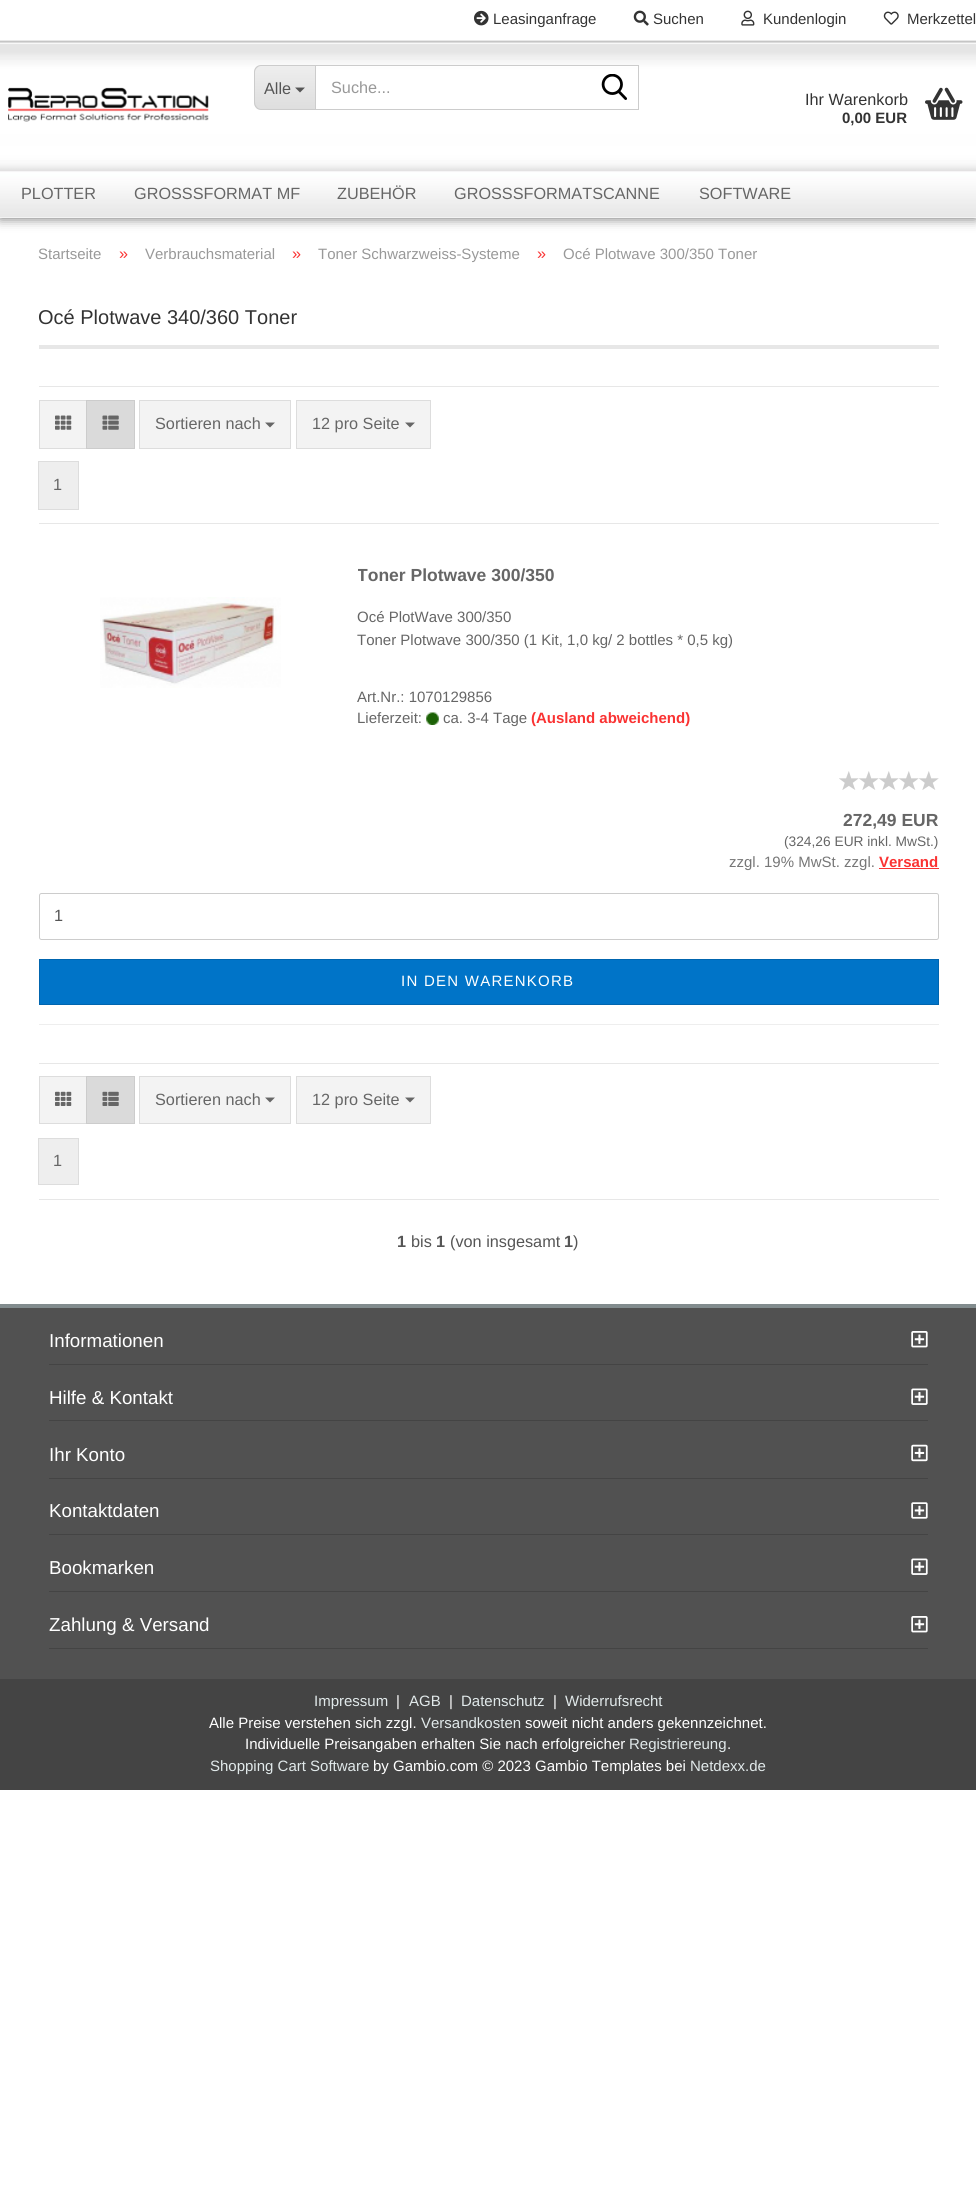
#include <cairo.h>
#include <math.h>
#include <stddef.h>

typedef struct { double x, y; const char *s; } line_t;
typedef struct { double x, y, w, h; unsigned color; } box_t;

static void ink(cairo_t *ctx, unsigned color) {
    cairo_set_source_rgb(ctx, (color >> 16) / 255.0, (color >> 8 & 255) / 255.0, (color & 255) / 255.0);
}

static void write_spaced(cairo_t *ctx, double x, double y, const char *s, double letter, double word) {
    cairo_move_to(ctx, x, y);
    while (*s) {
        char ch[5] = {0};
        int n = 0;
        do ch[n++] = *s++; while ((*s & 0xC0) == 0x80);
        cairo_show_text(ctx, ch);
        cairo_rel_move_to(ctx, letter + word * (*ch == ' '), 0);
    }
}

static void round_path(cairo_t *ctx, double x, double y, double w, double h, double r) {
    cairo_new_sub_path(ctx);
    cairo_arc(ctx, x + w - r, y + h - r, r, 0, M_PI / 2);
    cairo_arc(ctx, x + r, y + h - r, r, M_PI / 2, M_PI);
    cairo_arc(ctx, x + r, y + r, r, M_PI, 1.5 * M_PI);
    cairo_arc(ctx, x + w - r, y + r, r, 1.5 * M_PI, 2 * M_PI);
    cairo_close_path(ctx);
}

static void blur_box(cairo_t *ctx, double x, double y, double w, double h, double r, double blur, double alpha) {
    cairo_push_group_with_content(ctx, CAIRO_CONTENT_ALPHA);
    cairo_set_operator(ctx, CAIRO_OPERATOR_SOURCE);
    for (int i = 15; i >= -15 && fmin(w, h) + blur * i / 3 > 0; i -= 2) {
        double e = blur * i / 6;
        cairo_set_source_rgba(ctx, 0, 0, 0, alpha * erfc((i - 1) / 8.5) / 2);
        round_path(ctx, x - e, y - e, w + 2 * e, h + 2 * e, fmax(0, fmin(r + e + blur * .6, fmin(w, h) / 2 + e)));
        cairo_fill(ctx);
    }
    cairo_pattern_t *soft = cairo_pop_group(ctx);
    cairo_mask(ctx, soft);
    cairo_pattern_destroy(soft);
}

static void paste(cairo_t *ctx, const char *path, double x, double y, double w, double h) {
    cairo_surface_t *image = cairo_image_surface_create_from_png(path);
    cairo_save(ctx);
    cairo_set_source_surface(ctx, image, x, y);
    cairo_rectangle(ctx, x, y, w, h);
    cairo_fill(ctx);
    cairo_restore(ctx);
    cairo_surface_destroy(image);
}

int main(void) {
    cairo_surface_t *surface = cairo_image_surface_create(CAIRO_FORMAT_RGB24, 976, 2204);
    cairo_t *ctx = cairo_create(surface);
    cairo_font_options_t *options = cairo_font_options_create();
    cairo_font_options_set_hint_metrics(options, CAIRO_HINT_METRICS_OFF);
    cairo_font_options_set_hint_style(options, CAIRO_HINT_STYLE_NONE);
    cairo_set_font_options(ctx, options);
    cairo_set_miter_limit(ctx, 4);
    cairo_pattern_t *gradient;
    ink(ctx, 0xFFFFFF);
    cairo_paint(ctx);
    ink(ctx, 0x000000);
    blur_box(ctx, 0, 0, 976, 218, 0, 6, 0.6);
    ink(ctx, 0xFFFFFF);
    cairo_rectangle(ctx, 0, 0, 976, 218);
    cairo_fill(ctx);
    paste(ctx, "media/1.png", 0, 40, 976, 178);
    paste(ctx, "media/2.png", 474, 10, 15, 16);
    cairo_select_font_face(ctx, "Liberation Sans", CAIRO_FONT_SLANT_NORMAL, CAIRO_FONT_WEIGHT_NORMAL);
    cairo_set_font_size(ctx, 15);
    ink(ctx, 0x333333);
    cairo_move_to(ctx, 493, 24);
    cairo_show_text(ctx, "Leasinganfrage");
    paste(ctx, "media/3.png", 633, 10, 16, 16);
    cairo_move_to(ctx, 653, 24);
    cairo_show_text(ctx, "Suchen");
    paste(ctx, "media/4.png", 741, 10, 14, 16);
    cairo_move_to(ctx, 763, 24);
    cairo_show_text(ctx, "Kundenlogin");
    paste(ctx, "media/5.png", 883, 11, 16, 14);
    cairo_move_to(ctx, 907, 24);
    cairo_show_text(ctx, "Merkzettel");
    paste(ctx, "media/6.png", 8, 87, 201, 35);
    cairo_save(ctx);
    cairo_new_path(ctx);
    cairo_move_to(ctx, 262, 65);
    cairo_line_to(ctx, 315, 65);
    cairo_line_to(ctx, 315, 110);
    cairo_line_to(ctx, 262, 110);
    cairo_curve_to(ctx, 257.5, 110, 254, 106.5, 254, 102);
    cairo_line_to(ctx, 254, 73);
    cairo_curve_to(ctx, 254, 68.5, 257.5, 65, 262, 65);
    cairo_close_path(ctx);
    cairo_clip(ctx);
    gradient = cairo_pattern_create_linear(285, 66, 285, 109);
    cairo_pattern_add_color_stop_rgba(gradient, 0, 0.933, 0.933, 0.933, 1);
    cairo_pattern_add_color_stop_rgba(gradient, 1, 0.871, 0.871, 0.871, 1);
    cairo_set_source(ctx, gradient);
    cairo_pattern_destroy(gradient);
    cairo_rectangle(ctx, 254, 66, 61, 43);
    cairo_fill(ctx);
    cairo_restore(ctx);
    ink(ctx, 0xCCCCCC);
    cairo_set_fill_rule(ctx, CAIRO_FILL_RULE_EVEN_ODD);
    cairo_new_path(ctx);
    cairo_move_to(ctx, 261, 65);
    cairo_line_to(ctx, 315, 65);
    cairo_line_to(ctx, 315, 110);
    cairo_line_to(ctx, 261, 110);
    cairo_curve_to(ctx, 257, 110, 254, 107, 254, 102);
    cairo_line_to(ctx, 254, 72);
    cairo_curve_to(ctx, 254, 68, 257, 65, 261, 65);
    cairo_close_path(ctx);
    cairo_move_to(ctx, 261, 66);
    cairo_line_to(ctx, 315, 66);
    cairo_line_to(ctx, 315, 109);
    cairo_line_to(ctx, 261, 109);
    cairo_curve_to(ctx, 258, 109, 255, 106, 255, 102);
    cairo_line_to(ctx, 255, 72);
    cairo_curve_to(ctx, 255, 69, 258, 66, 261, 66);
    cairo_close_path(ctx);
    cairo_fill(ctx);
    cairo_set_font_size(ctx, 16.25);
    ink(ctx, 0x555555);
    cairo_move_to(ctx, 264, 94);
    cairo_show_text(ctx, "Alle");
    cairo_set_fill_rule(ctx, CAIRO_FILL_RULE_WINDING);
    cairo_new_path(ctx);
    cairo_move_to(ctx, 295, 87.5);
    cairo_line_to(ctx, 305, 87.5);
    cairo_line_to(ctx, 300, 92.5);
    cairo_close_path(ctx);
    cairo_fill(ctx);
    ink(ctx, 0xFFFFFF);
    cairo_rectangle(ctx, 316, 66, 322, 1);
    cairo_fill(ctx);
    cairo_rectangle(ctx, 315.5, 65.5, 323, 44);
    ink(ctx, 0xCCCCCC);
    cairo_set_line_width(ctx, 1);
    cairo_stroke(ctx);
    ink(ctx, 0x999999);
    cairo_move_to(ctx, 331, 93);
    cairo_show_text(ctx, "Suche...");
    paste(ctx, "media/7.png", 601, 74, 26, 26);
    ink(ctx, 0x333333);
    cairo_move_to(ctx, 805, 105);
    cairo_show_text(ctx, "Ihr Warenkorb");
    cairo_select_font_face(ctx, "Liberation Sans", CAIRO_FONT_SLANT_NORMAL, CAIRO_FONT_WEIGHT_BOLD);
    cairo_set_font_size(ctx, 15);
    cairo_move_to(ctx, 842, 123);
    cairo_show_text(ctx, "0,00 EUR");
    paste(ctx, "media/8.png", 925, 87, 38, 33);
    cairo_select_font_face(ctx, "Liberation Sans", CAIRO_FONT_SLANT_NORMAL, CAIRO_FONT_WEIGHT_NORMAL);
    cairo_set_font_size(ctx, 16.25);
    ink(ctx, 0x666666);
    {
        static const line_t items[] = {
            {21, 199, "PLOTTER"},
            {134, 199, "GROSSSFORMAT MF"},
            {337, 199, "ZUBEHÖR"},
            {454, 199, "GROSSSFORMATSCANNE"},
            {699, 199, "SOFTWARE"},
        };
        for (size_t i = 0; i < sizeof items / sizeof *items; i++) {
            cairo_move_to(ctx, items[i].x, items[i].y);
            cairo_show_text(ctx, items[i].s);
        }
    }
    cairo_set_font_size(ctx, 15);
    ink(ctx, 0x999999);
    cairo_move_to(ctx, 38, 259);
    cairo_show_text(ctx, "Startseite");
    cairo_set_font_size(ctx, 16.25);
    ink(ctx, 0xFA3232);
    cairo_move_to(ctx, 119, 259);
    cairo_show_text(ctx, "»");
    cairo_set_font_size(ctx, 15);
    ink(ctx, 0x999999);
    cairo_move_to(ctx, 145, 259);
    cairo_show_text(ctx, "Verbrauchsmaterial");
    cairo_set_font_size(ctx, 16.25);
    ink(ctx, 0xFA3232);
    cairo_move_to(ctx, 292, 259);
    cairo_show_text(ctx, "»");
    cairo_set_font_size(ctx, 15);
    ink(ctx, 0x999999);
    cairo_move_to(ctx, 318, 259);
    cairo_show_text(ctx, "Toner Schwarzweiss-Systeme");
    cairo_set_font_size(ctx, 16.25);
    ink(ctx, 0xFA3232);
    cairo_move_to(ctx, 537, 259);
    cairo_show_text(ctx, "»");
    cairo_set_font_size(ctx, 15);
    ink(ctx, 0x999999);
    cairo_move_to(ctx, 563, 259);
    cairo_show_text(ctx, "Océ Plotwave 300/350 Toner");
    ink(ctx, 0xE7E7E7);
    cairo_rectangle(ctx, 39, 345, 900, 4);
    cairo_fill(ctx);
    cairo_set_font_size(ctx, 20);
    ink(ctx, 0x333333);
    cairo_move_to(ctx, 38, 324);
    cairo_show_text(ctx, "Océ Plotwave 340/360 Toner");
    {
        static const box_t items[] = {
            {39, 386, 900, 1, 0xE7E7E7},
            {39, 523, 900, 1, 0xE7E7E7},
            {40, 401, 46, 47, 0xF3F3F3},
        };
        for (size_t i = 0; i < sizeof items / sizeof *items; i++) {
            ink(ctx, items[i].color);
            cairo_rectangle(ctx, items[i].x, items[i].y, items[i].w, items[i].h);
            cairo_fill(ctx);
        }
    }
    cairo_rectangle(ctx, 39.5, 400.5, 48, 48);
    ink(ctx, 0xDDDDDD);
    cairo_stroke(ctx);
    paste(ctx, "media/9.png", 55, 415, 17, 15);
    ink(ctx, 0xDADADA);
    cairo_rectangle(ctx, 86.5, 400.5, 48, 48);
    cairo_fill_preserve(ctx);
    ink(ctx, 0xCCCCCC);
    cairo_stroke(ctx);
    paste(ctx, "media/10.png", 102, 415, 17, 15);
    ink(ctx, 0xF3F3F3);
    cairo_rectangle(ctx, 139.5, 400.5, 151, 48);
    cairo_fill_preserve(ctx);
    ink(ctx, 0xDDDDDD);
    cairo_stroke(ctx);
    cairo_set_font_size(ctx, 16.25);
    ink(ctx, 0x666666);
    cairo_move_to(ctx, 155, 429);
    cairo_show_text(ctx, "Sortieren nach");
    cairo_new_path(ctx);
    cairo_move_to(ctx, 265, 422.5);
    cairo_line_to(ctx, 275, 422.5);
    cairo_line_to(ctx, 270, 427.5);
    cairo_close_path(ctx);
    cairo_fill(ctx);
    ink(ctx, 0xF3F3F3);
    cairo_rectangle(ctx, 296.5, 400.5, 134, 48);
    cairo_fill_preserve(ctx);
    ink(ctx, 0xDDDDDD);
    cairo_stroke(ctx);
    ink(ctx, 0x666666);
    cairo_move_to(ctx, 312, 429);
    cairo_show_text(ctx, "12 pro Seite");
    cairo_new_path(ctx);
    cairo_move_to(ctx, 405, 422.5);
    cairo_line_to(ctx, 415, 422.5);
    cairo_line_to(ctx, 410, 427.5);
    cairo_close_path(ctx);
    cairo_fill(ctx);
    ink(ctx, 0xEEEEEE);
    cairo_rectangle(ctx, 38.5, 461.5, 40, 48);
    cairo_fill_preserve(ctx);
    ink(ctx, 0xDDDDDD);
    cairo_stroke(ctx);
    ink(ctx, 0x666666);
    cairo_move_to(ctx, 53, 490);
    cairo_show_text(ctx, "1");
    ink(ctx, 0xEEEEEE);
    cairo_rectangle(ctx, 39, 1024, 900, 1);
    cairo_fill(ctx);
    paste(ctx, "media/11.png", 100, 597, 181, 91);
    cairo_save(ctx);
    cairo_rectangle(ctx, 358, 561, 562, 25);
    cairo_clip(ctx);
    cairo_select_font_face(ctx, "Liberation Sans", CAIRO_FONT_SLANT_NORMAL, CAIRO_FONT_WEIGHT_BOLD);
    cairo_set_font_size(ctx, 17.5);
    ink(ctx, 0x666666);
    cairo_move_to(ctx, 357, 581);
    cairo_show_text(ctx, "Toner Plotwave 300/350");
    cairo_restore(ctx);
    cairo_set_font_size(ctx, 15);
    ink(ctx, 0x666666);
    {
        static const line_t items[] = {
            {357, 622, "Océ PlotWave 300/350"},
            {357, 645, "Toner Plotwave 300/350 (1 Kit, 1,0 kg/ 2 bottles * 0,5 kg)"},
            {357, 702, "Art.Nr.: 1070129856"},
            {357, 723, "Lieferzeit:"},
        };
        for (size_t i = 0; i < sizeof items / sizeof *items; i++) {
            cairo_move_to(ctx, items[i].x, items[i].y);
            cairo_show_text(ctx, items[i].s);
        }
    }
    paste(ctx, "media/12.png", 426, 712, 13, 13);
    cairo_move_to(ctx, 443, 723);
    cairo_show_text(ctx, "ca. 3-4 Tage");
    cairo_select_font_face(ctx, "Liberation Sans", CAIRO_FONT_SLANT_NORMAL, CAIRO_FONT_WEIGHT_BOLD);
    ink(ctx, 0xFA3232);
    cairo_move_to(ctx, 531, 723);
    cairo_show_text(ctx, "(Ausland abweichend)");
    paste(ctx, "media/13.png", 839, 771, 20, 19);
    paste(ctx, "media/13.png", 859, 771, 20, 19);
    paste(ctx, "media/13.png", 879, 771, 20, 19);
    paste(ctx, "media/13.png", 899, 771, 20, 19);
    paste(ctx, "media/13.png", 919, 771, 20, 19);
    cairo_set_font_size(ctx, 17.5);
    ink(ctx, 0x666666);
    cairo_move_to(ctx, 843, 826);
    cairo_show_text(ctx, "272,49 EUR");
    cairo_select_font_face(ctx, "Liberation Sans", CAIRO_FONT_SLANT_NORMAL, CAIRO_FONT_WEIGHT_NORMAL);
    cairo_set_font_size(ctx, 13.75);
    cairo_move_to(ctx, 784, 846);
    cairo_show_text(ctx, "(324,26 EUR inkl. MwSt.)");
    cairo_set_font_size(ctx, 15);
    ink(ctx, 0x777777);
    cairo_move_to(ctx, 729, 867);
    cairo_show_text(ctx, "zzgl. 19% MwSt. zzgl.");
    cairo_select_font_face(ctx, "Liberation Sans", CAIRO_FONT_SLANT_NORMAL, CAIRO_FONT_WEIGHT_BOLD);
    ink(ctx, 0xFA3232);
    cairo_move_to(ctx, 879, 867);
    cairo_show_text(ctx, "Versand");
    cairo_rectangle(ctx, 879, 868, 60, 1);
    cairo_fill(ctx);
    round_path(ctx, 39.5, 893.5, 899, 46, 2);
    ink(ctx, 0xCCCCCC);
    cairo_stroke(ctx);
    cairo_select_font_face(ctx, "Liberation Sans", CAIRO_FONT_SLANT_NORMAL, CAIRO_FONT_WEIGHT_NORMAL);
    cairo_set_font_size(ctx, 16.25);
    ink(ctx, 0x555555);
    cairo_move_to(ctx, 54, 921);
    cairo_show_text(ctx, "1");
    ink(ctx, 0x0074C8);
    cairo_rectangle(ctx, 39.5, 959.5, 899, 45);
    cairo_fill_preserve(ctx);
    ink(ctx, 0x0065AF);
    cairo_stroke(ctx);
    cairo_set_font_size(ctx, 15);
    ink(ctx, 0xFFFFFF);
    write_spaced(ctx, 401, 986, "IN DEN WARENKORB", 1.25, 0);
    {
        static const box_t items[] = {
            {39, 1063, 900, 1, 0xE7E7E7},
            {39, 1199, 900, 1, 0xE7E7E7},
            {40, 1077, 46, 46, 0xF3F3F3},
        };
        for (size_t i = 0; i < sizeof items / sizeof *items; i++) {
            ink(ctx, items[i].color);
            cairo_rectangle(ctx, items[i].x, items[i].y, items[i].w, items[i].h);
            cairo_fill(ctx);
        }
    }
    cairo_rectangle(ctx, 39.5, 1076.5, 48, 47);
    ink(ctx, 0xDDDDDD);
    cairo_stroke(ctx);
    paste(ctx, "media/14.png", 55, 1091, 17, 15);
    ink(ctx, 0xDADADA);
    cairo_rectangle(ctx, 86.5, 1076.5, 48, 47);
    cairo_fill_preserve(ctx);
    ink(ctx, 0xCCCCCC);
    cairo_stroke(ctx);
    paste(ctx, "media/15.png", 102, 1091, 17, 15);
    ink(ctx, 0xF3F3F3);
    cairo_rectangle(ctx, 139.5, 1076.5, 151, 47);
    cairo_fill_preserve(ctx);
    ink(ctx, 0xDDDDDD);
    cairo_stroke(ctx);
    cairo_set_font_size(ctx, 16.25);
    ink(ctx, 0x666666);
    cairo_move_to(ctx, 155, 1105);
    cairo_show_text(ctx, "Sortieren nach");
    cairo_new_path(ctx);
    cairo_move_to(ctx, 265, 1097.5);
    cairo_line_to(ctx, 275, 1097.5);
    cairo_line_to(ctx, 270, 1102.5);
    cairo_close_path(ctx);
    cairo_fill(ctx);
    ink(ctx, 0xF3F3F3);
    cairo_rectangle(ctx, 296.5, 1076.5, 134, 47);
    cairo_fill_preserve(ctx);
    ink(ctx, 0xDDDDDD);
    cairo_stroke(ctx);
    ink(ctx, 0x666666);
    cairo_move_to(ctx, 312, 1105);
    cairo_show_text(ctx, "12 pro Seite");
    cairo_new_path(ctx);
    cairo_move_to(ctx, 405, 1097.5);
    cairo_line_to(ctx, 415, 1097.5);
    cairo_line_to(ctx, 410, 1102.5);
    cairo_close_path(ctx);
    cairo_fill(ctx);
    ink(ctx, 0xEEEEEE);
    cairo_rectangle(ctx, 38.5, 1138.5, 40, 46);
    cairo_fill_preserve(ctx);
    ink(ctx, 0xDDDDDD);
    cairo_stroke(ctx);
    ink(ctx, 0x666666);
    cairo_move_to(ctx, 53, 1166);
    cairo_show_text(ctx, "1");
    cairo_select_font_face(ctx, "Liberation Sans", CAIRO_FONT_SLANT_NORMAL, CAIRO_FONT_WEIGHT_BOLD);
    ink(ctx, 0x555555);
    cairo_move_to(ctx, 397, 1247);
    cairo_show_text(ctx, "1");
    cairo_select_font_face(ctx, "Liberation Sans", CAIRO_FONT_SLANT_NORMAL, CAIRO_FONT_WEIGHT_NORMAL);
    cairo_move_to(ctx, 411, 1247);
    cairo_show_text(ctx, "bis");
    cairo_select_font_face(ctx, "Liberation Sans", CAIRO_FONT_SLANT_NORMAL, CAIRO_FONT_WEIGHT_BOLD);
    cairo_move_to(ctx, 436, 1247);
    cairo_show_text(ctx, "1");
    cairo_select_font_face(ctx, "Liberation Sans", CAIRO_FONT_SLANT_NORMAL, CAIRO_FONT_WEIGHT_NORMAL);
    cairo_move_to(ctx, 450, 1247);
    cairo_show_text(ctx, "(von insgesamt");
    cairo_select_font_face(ctx, "Liberation Sans", CAIRO_FONT_SLANT_NORMAL, CAIRO_FONT_WEIGHT_BOLD);
    cairo_move_to(ctx, 564, 1247);
    cairo_show_text(ctx, "1");
    cairo_select_font_face(ctx, "Liberation Sans", CAIRO_FONT_SLANT_NORMAL, CAIRO_FONT_WEIGHT_NORMAL);
    cairo_move_to(ctx, 573, 1247);
    cairo_show_text(ctx, ")");
    {
        static const box_t items[] = {
            {0, 1308, 976, 371, 0x515151},
            {0, 1304, 976, 4, 0x828C8E},
            {49, 1364, 879, 1, 0x444444},
        };
        for (size_t i = 0; i < sizeof items / sizeof *items; i++) {
            ink(ctx, items[i].color);
            cairo_rectangle(ctx, items[i].x, items[i].y, items[i].w, items[i].h);
            cairo_fill(ctx);
        }
    }
    cairo_set_font_size(ctx, 18.75);
    ink(ctx, 0xFFFFFF);
    cairo_move_to(ctx, 49, 1347);
    cairo_show_text(ctx, "Informationen");
    paste(ctx, "media/16.png", 911, 1331, 17, 17);
    ink(ctx, 0x444444);
    cairo_rectangle(ctx, 49, 1420, 879, 1);
    cairo_fill(ctx);
    ink(ctx, 0xFFFFFF);
    cairo_move_to(ctx, 49, 1404);
    cairo_show_text(ctx, "Hilfe & Kontakt");
    paste(ctx, "media/17.png", 911, 1388, 17, 17);
    ink(ctx, 0x444444);
    cairo_rectangle(ctx, 49, 1478, 879, 1);
    cairo_fill(ctx);
    ink(ctx, 0xFFFFFF);
    cairo_move_to(ctx, 49, 1461);
    cairo_show_text(ctx, "Ihr Konto");
    paste(ctx, "media/18.png", 911, 1444, 17, 18);
    ink(ctx, 0x444444);
    cairo_rectangle(ctx, 49, 1534, 879, 1);
    cairo_fill(ctx);
    ink(ctx, 0xFFFFFF);
    cairo_move_to(ctx, 49, 1517);
    cairo_show_text(ctx, "Kontaktdaten");
    paste(ctx, "media/19.png", 911, 1502, 17, 17);
    ink(ctx, 0x444444);
    cairo_rectangle(ctx, 49, 1591, 879, 1);
    cairo_fill(ctx);
    ink(ctx, 0xFFFFFF);
    cairo_move_to(ctx, 49, 1574);
    cairo_show_text(ctx, "Bookmarken");
    paste(ctx, "media/17.png", 911, 1558, 17, 17);
    ink(ctx, 0x444444);
    cairo_rectangle(ctx, 49, 1648, 879, 1);
    cairo_fill(ctx);
    ink(ctx, 0xFFFFFF);
    cairo_move_to(ctx, 49, 1631);
    cairo_show_text(ctx, "Zahlung & Versand");
    paste(ctx, "media/16.png", 911, 1616, 17, 17);
    ink(ctx, 0x444444);
    cairo_rectangle(ctx, 0, 1679, 976, 111);
    cairo_fill(ctx);
    cairo_set_font_size(ctx, 15);
    ink(ctx, 0xE1E9EA);
    cairo_move_to(ctx, 314, 1706);
    cairo_show_text(ctx, "Impressum");
    ink(ctx, 0xFFFFFF);
    cairo_move_to(ctx, 396, 1706);
    cairo_show_text(ctx, "|");
    ink(ctx, 0xE1E9EA);
    cairo_move_to(ctx, 409, 1706);
    cairo_show_text(ctx, "AGB");
    ink(ctx, 0xFFFFFF);
    cairo_move_to(ctx, 449, 1706);
    cairo_show_text(ctx, "|");
    ink(ctx, 0xE1E9EA);
    cairo_move_to(ctx, 461, 1706);
    cairo_show_text(ctx, "Datenschutz");
    ink(ctx, 0xFFFFFF);
    cairo_move_to(ctx, 553, 1706);
    cairo_show_text(ctx, "|");
    ink(ctx, 0xE1E9EA);
    cairo_move_to(ctx, 565, 1706);
    cairo_show_text(ctx, "Widerrufsrecht");
    ink(ctx, 0xFFFFFF);
    cairo_move_to(ctx, 209, 1728);
    cairo_show_text(ctx, "Alle Preise verstehen sich zzgl.");
    ink(ctx, 0xE1E9EA);
    cairo_move_to(ctx, 421, 1728);
    cairo_show_text(ctx, "Versandkosten");
    ink(ctx, 0xFFFFFF);
    cairo_move_to(ctx, 525, 1728);
    cairo_show_text(ctx, "soweit nicht anders gekennzeichnet.");
    cairo_move_to(ctx, 245, 1749);
    cairo_show_text(ctx, "Individuelle Preisangaben erhalten Sie nach erfolgreicher");
    ink(ctx, 0xE1E9EA);
    cairo_move_to(ctx, 629, 1749);
    cairo_show_text(ctx, "Registriereung");
    ink(ctx, 0xFFFFFF);
    cairo_move_to(ctx, 727, 1749);
    cairo_show_text(ctx, ".");
    ink(ctx, 0xE1E9EA);
    cairo_move_to(ctx, 210, 1771);
    cairo_show_text(ctx, "Shopping Cart Software");
    ink(ctx, 0xFFFFFF);
    cairo_move_to(ctx, 373, 1771);
    cairo_show_text(ctx, "by Gambio.com © 2023 Gambio Templates bei");
    ink(ctx, 0xE1E9EA);
    cairo_move_to(ctx, 690, 1771);
    cairo_show_text(ctx, "Netdexx.de");
    cairo_surface_write_to_png(surface, "image.png");
    cairo_font_options_destroy(options);
    cairo_destroy(ctx);
    cairo_surface_destroy(surface);
    return 0;
}
